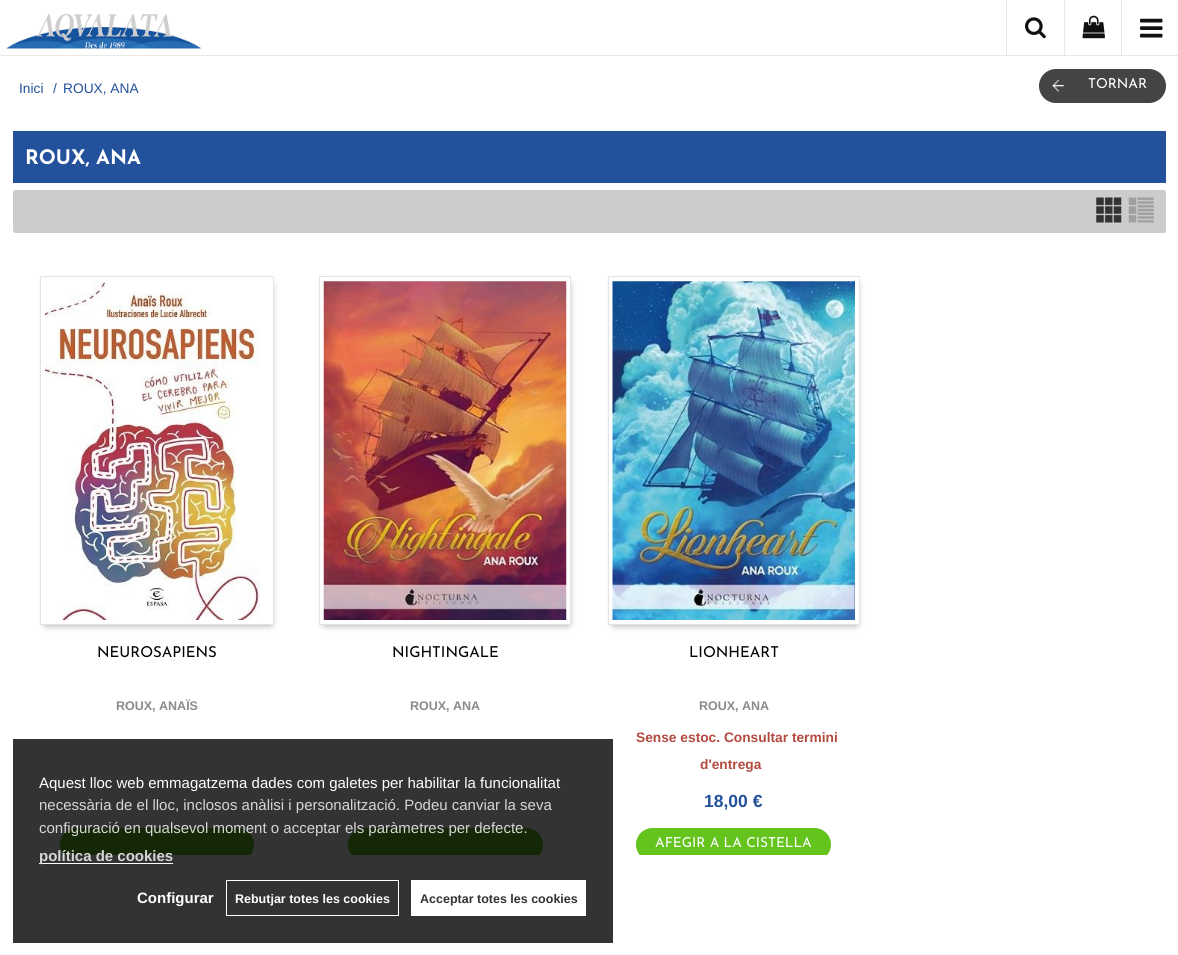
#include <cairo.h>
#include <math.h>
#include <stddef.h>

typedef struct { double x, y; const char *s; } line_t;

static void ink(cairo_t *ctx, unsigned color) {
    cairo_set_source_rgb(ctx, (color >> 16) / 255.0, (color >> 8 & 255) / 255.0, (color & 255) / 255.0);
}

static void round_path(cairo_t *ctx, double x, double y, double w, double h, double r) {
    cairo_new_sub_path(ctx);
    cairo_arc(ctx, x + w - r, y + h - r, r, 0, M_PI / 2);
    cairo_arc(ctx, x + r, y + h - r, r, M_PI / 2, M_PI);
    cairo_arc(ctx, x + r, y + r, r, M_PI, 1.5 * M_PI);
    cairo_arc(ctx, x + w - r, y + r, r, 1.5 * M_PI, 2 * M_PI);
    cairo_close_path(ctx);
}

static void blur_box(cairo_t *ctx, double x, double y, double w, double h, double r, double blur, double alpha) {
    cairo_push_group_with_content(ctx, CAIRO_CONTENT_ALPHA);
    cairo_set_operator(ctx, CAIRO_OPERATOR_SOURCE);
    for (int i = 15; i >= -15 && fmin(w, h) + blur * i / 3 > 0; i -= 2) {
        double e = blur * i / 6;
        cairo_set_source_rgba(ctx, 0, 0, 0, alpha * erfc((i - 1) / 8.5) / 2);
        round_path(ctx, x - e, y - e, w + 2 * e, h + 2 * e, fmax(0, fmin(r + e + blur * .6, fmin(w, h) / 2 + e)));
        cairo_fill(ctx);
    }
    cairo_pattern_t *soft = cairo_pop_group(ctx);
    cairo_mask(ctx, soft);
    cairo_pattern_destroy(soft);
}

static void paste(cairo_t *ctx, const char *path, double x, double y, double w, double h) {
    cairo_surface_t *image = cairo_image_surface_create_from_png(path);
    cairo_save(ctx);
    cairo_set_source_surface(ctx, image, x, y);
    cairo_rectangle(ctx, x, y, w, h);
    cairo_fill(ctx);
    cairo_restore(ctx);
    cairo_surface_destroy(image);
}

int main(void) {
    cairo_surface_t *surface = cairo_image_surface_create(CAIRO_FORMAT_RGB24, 1178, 955);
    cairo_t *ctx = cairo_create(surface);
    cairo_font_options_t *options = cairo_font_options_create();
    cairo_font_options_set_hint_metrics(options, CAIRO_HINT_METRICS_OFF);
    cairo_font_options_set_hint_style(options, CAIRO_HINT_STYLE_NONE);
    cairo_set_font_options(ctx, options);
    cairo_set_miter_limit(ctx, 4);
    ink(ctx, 0xFFFFFF);
    cairo_paint(ctx);
    ink(ctx, 0xE8E8E8);
    cairo_rectangle(ctx, 0, 55, 1178, 1);
    cairo_fill(ctx);
    paste(ctx, "media/1.png", 6, 13, 196, 36);
    cairo_rectangle(ctx, 1006, 0, 1, 55);
    cairo_fill(ctx);
    paste(ctx, "media/2.png", 1025, 17, 21, 22);
    cairo_rectangle(ctx, 1064, 0, 1, 55);
    cairo_fill(ctx);
    paste(ctx, "media/3.png", 1082, 15, 23, 24);
    cairo_rectangle(ctx, 1121, 0, 1, 55);
    cairo_fill(ctx);
    paste(ctx, "media/4.png", 1140, 18, 23, 20);
    cairo_select_font_face(ctx, "Liberation Sans", CAIRO_FONT_SLANT_NORMAL, CAIRO_FONT_WEIGHT_NORMAL);
    cairo_set_font_size(ctx, 13.75);
    ink(ctx, 0x23519C);
    {
        static const line_t items[] = {
            {19, 93, "Inici"},
            {53, 93, "/"},
            {63, 93, "ROUX, ANA"},
        };
        for (size_t i = 0; i < sizeof items / sizeof *items; i++) {
            cairo_move_to(ctx, items[i].x, items[i].y);
            cairo_show_text(ctx, items[i].s);
        }
    }
    ink(ctx, 0x444444);
    round_path(ctx, 1039, 69, 127, 34, 17);
    cairo_fill(ctx);
    paste(ctx, "media/5.png", 1052, 79, 12, 13);
    cairo_select_font_face(ctx, "Josefin Sans", CAIRO_FONT_SLANT_NORMAL, CAIRO_FONT_WEIGHT_NORMAL);
    ink(ctx, 0xFFFFFF);
    cairo_move_to(ctx, 1088, 88);
    cairo_show_text(ctx, "TORNAR");
    ink(ctx, 0x23519C);
    cairo_rectangle(ctx, 13, 131, 1153, 52);
    cairo_fill(ctx);
    cairo_select_font_face(ctx, "Josefin Sans", CAIRO_FONT_SLANT_NORMAL, CAIRO_FONT_WEIGHT_BOLD);
    cairo_set_font_size(ctx, 20);
    ink(ctx, 0xFFFFFF);
    cairo_move_to(ctx, 25, 164);
    cairo_show_text(ctx, "ROUX, ANA");
    ink(ctx, 0xCCCCCC);
    round_path(ctx, 13, 190, 1153, 43, 2.5);
    cairo_fill(ctx);
    paste(ctx, "media/6.png", 1096, 197, 26, 26);
    paste(ctx, "media/7.png", 1128, 197, 26, 26);
    cairo_save(ctx);
    cairo_set_fill_rule(ctx, CAIRO_FILL_RULE_EVEN_ODD);
    cairo_new_path(ctx);
    cairo_move_to(ctx, 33, 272);
    cairo_line_to(ctx, 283, 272);
    cairo_line_to(ctx, 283, 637);
    cairo_line_to(ctx, 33, 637);
    cairo_close_path(ctx);
    cairo_move_to(ctx, 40, 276);
    cairo_line_to(ctx, 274, 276);
    cairo_line_to(ctx, 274, 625);
    cairo_line_to(ctx, 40, 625);
    cairo_close_path(ctx);
    cairo_clip(ctx);
    ink(ctx, 0x000000);
    blur_box(ctx, 46, 285, 224, 339, 0, 4, 0.5);
    cairo_restore(ctx);
    cairo_rectangle(ctx, 40.5, 276.5, 233, 348);
    ink(ctx, 0xE4E4E4);
    cairo_set_line_width(ctx, 1);
    cairo_stroke(ctx);
    paste(ctx, "media/8.png", 45, 281, 215, 339);
    cairo_select_font_face(ctx, "Josefin Sans", CAIRO_FONT_SLANT_NORMAL, CAIRO_FONT_WEIGHT_NORMAL);
    cairo_set_font_size(ctx, 15);
    ink(ctx, 0x000000);
    cairo_move_to(ctx, 97, 657);
    cairo_show_text(ctx, "NEUROSAPIENS");
    cairo_select_font_face(ctx, "Liberation Sans", CAIRO_FONT_SLANT_NORMAL, CAIRO_FONT_WEIGHT_BOLD);
    cairo_set_font_size(ctx, 12.5);
    ink(ctx, 0x8B8A8A);
    cairo_move_to(ctx, 116, 710);
    cairo_show_text(ctx, "ROUX, ANAÏS");
    cairo_save(ctx);
    cairo_rectangle(ctx, 13, 264, 1153, 591);
    cairo_clip(ctx);
    ink(ctx, 0x64C31D);
    round_path(ctx, 60, 828, 194, 33, 16.5);
    cairo_fill(ctx);
    cairo_restore(ctx);
    cairo_save(ctx);
    cairo_set_fill_rule(ctx, CAIRO_FILL_RULE_EVEN_ODD);
    cairo_new_path(ctx);
    cairo_move_to(ctx, 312, 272);
    cairo_line_to(ctx, 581, 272);
    cairo_line_to(ctx, 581, 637);
    cairo_line_to(ctx, 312, 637);
    cairo_close_path(ctx);
    cairo_move_to(ctx, 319, 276);
    cairo_line_to(ctx, 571, 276);
    cairo_line_to(ctx, 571, 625);
    cairo_line_to(ctx, 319, 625);
    cairo_close_path(ctx);
    cairo_clip(ctx);
    ink(ctx, 0x000000);
    blur_box(ctx, 325, 285, 243, 339, 0, 4, 0.5);
    cairo_restore(ctx);
    cairo_rectangle(ctx, 319.5, 276.5, 251, 348);
    ink(ctx, 0xE4E4E4);
    cairo_stroke(ctx);
    paste(ctx, "media/9.png", 323, 281, 244, 339);
    cairo_select_font_face(ctx, "Josefin Sans", CAIRO_FONT_SLANT_NORMAL, CAIRO_FONT_WEIGHT_NORMAL);
    cairo_set_font_size(ctx, 15);
    ink(ctx, 0x000000);
    cairo_move_to(ctx, 392, 657);
    cairo_show_text(ctx, "NIGHTINGALE");
    cairo_select_font_face(ctx, "Liberation Sans", CAIRO_FONT_SLANT_NORMAL, CAIRO_FONT_WEIGHT_BOLD);
    cairo_set_font_size(ctx, 12.5);
    ink(ctx, 0x8B8A8A);
    cairo_move_to(ctx, 410, 710);
    cairo_show_text(ctx, "ROUX, ANA");
    cairo_save(ctx);
    cairo_rectangle(ctx, 13, 264, 1153, 591);
    cairo_clip(ctx);
    ink(ctx, 0x64C31D);
    round_path(ctx, 348, 828, 195, 33, 16.5);
    cairo_fill(ctx);
    cairo_restore(ctx);
    cairo_save(ctx);
    cairo_set_fill_rule(ctx, CAIRO_FILL_RULE_EVEN_ODD);
    cairo_new_path(ctx);
    cairo_move_to(ctx, 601, 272);
    cairo_line_to(ctx, 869, 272);
    cairo_line_to(ctx, 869, 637);
    cairo_line_to(ctx, 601, 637);
    cairo_close_path(ctx);
    cairo_move_to(ctx, 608, 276);
    cairo_line_to(ctx, 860, 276);
    cairo_line_to(ctx, 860, 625);
    cairo_line_to(ctx, 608, 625);
    cairo_close_path(ctx);
    cairo_clip(ctx);
    ink(ctx, 0x000000);
    blur_box(ctx, 614, 285, 242, 339, 0, 4, 0.5);
    cairo_restore(ctx);
    cairo_rectangle(ctx, 608.5, 276.5, 251, 348);
    ink(ctx, 0xE4E4E4);
    cairo_stroke(ctx);
    paste(ctx, "media/10.png", 612, 281, 243, 339);
    cairo_select_font_face(ctx, "Josefin Sans", CAIRO_FONT_SLANT_NORMAL, CAIRO_FONT_WEIGHT_NORMAL);
    cairo_set_font_size(ctx, 15);
    ink(ctx, 0x000000);
    cairo_move_to(ctx, 689, 657);
    cairo_show_text(ctx, "LIONHEART");
    cairo_select_font_face(ctx, "Liberation Sans", CAIRO_FONT_SLANT_NORMAL, CAIRO_FONT_WEIGHT_BOLD);
    cairo_set_font_size(ctx, 12.5);
    ink(ctx, 0x8B8A8A);
    cairo_move_to(ctx, 699, 710);
    cairo_show_text(ctx, "ROUX, ANA");
    cairo_set_font_size(ctx, 13.75);
    ink(ctx, 0xB34A3F);
    cairo_move_to(ctx, 636, 742);
    cairo_show_text(ctx, "Sense estoc. Consultar termini");
    cairo_move_to(ctx, 700, 769);
    cairo_show_text(ctx, "d'entrega");
    cairo_set_font_size(ctx, 17.5);
    ink(ctx, 0x23519C);
    cairo_move_to(ctx, 704, 807);
    cairo_show_text(ctx, "18,00 €");
    cairo_save(ctx);
    cairo_rectangle(ctx, 13, 264, 1153, 591);
    cairo_clip(ctx);
    ink(ctx, 0x64C31D);
    round_path(ctx, 636, 828, 195, 33, 16.5);
    cairo_fill(ctx);
    cairo_restore(ctx);
    cairo_select_font_face(ctx, "Josefin Sans", CAIRO_FONT_SLANT_NORMAL, CAIRO_FONT_WEIGHT_NORMAL);
    cairo_set_font_size(ctx, 13.75);
    ink(ctx, 0xFFFFFF);
    cairo_move_to(ctx, 655, 847);
    cairo_show_text(ctx, "AFEGIR A LA CISTELLA");
    cairo_set_source_rgba(ctx, 0, 0, 0, 0.8);
    cairo_rectangle(ctx, 13, 739, 600, 204);
    cairo_fill(ctx);
    cairo_select_font_face(ctx, "Liberation Sans", CAIRO_FONT_SLANT_NORMAL, CAIRO_FONT_WEIGHT_NORMAL);
    cairo_set_font_size(ctx, 15);
    ink(ctx, 0xFFFFFF);
    cairo_move_to(ctx, 39, 788);
    cairo_show_text(ctx, "Aquest lloc web emmagatzema dades com galetes per habilitar la funcionalitat");
    ink(ctx, 0xD6D6D6);
    cairo_move_to(ctx, 39, 810);
    cairo_show_text(ctx, "necessària de el lloc, inclosos anàlisi i personalització. Podeu canviar la seva");
    cairo_move_to(ctx, 39, 833);
    cairo_show_text(ctx, "configuració en qualsevol moment o acceptar els paràmetres per defecte.");
    ink(ctx, 0xFFFFFF);
    cairo_rectangle(ctx, 39, 863, 134, 1);
    cairo_fill(ctx);
    cairo_select_font_face(ctx, "Liberation Sans", CAIRO_FONT_SLANT_NORMAL, CAIRO_FONT_WEIGHT_BOLD);
    ink(ctx, 0xD6D6D6);
    cairo_move_to(ctx, 39, 861);
    cairo_show_text(ctx, "política de cookies");
    ink(ctx, 0xFFFFFF);
    cairo_move_to(ctx, 137, 903);
    cairo_show_text(ctx, "Configurar");
    cairo_rectangle(ctx, 226.5, 880.5, 172, 35);
    cairo_stroke(ctx);
    cairo_set_font_size(ctx, 12.5);
    cairo_move_to(ctx, 235, 903);
    cairo_show_text(ctx, "Rebutjar totes les cookies");
    cairo_rectangle(ctx, 411, 880, 175, 36);
    cairo_fill(ctx);
    ink(ctx, 0x333333);
    cairo_move_to(ctx, 420, 903);
    cairo_show_text(ctx, "Acceptar totes les cookies");
    cairo_surface_write_to_png(surface, "image.png");
    cairo_font_options_destroy(options);
    cairo_destroy(ctx);
    cairo_surface_destroy(surface);
    return 0;
}
